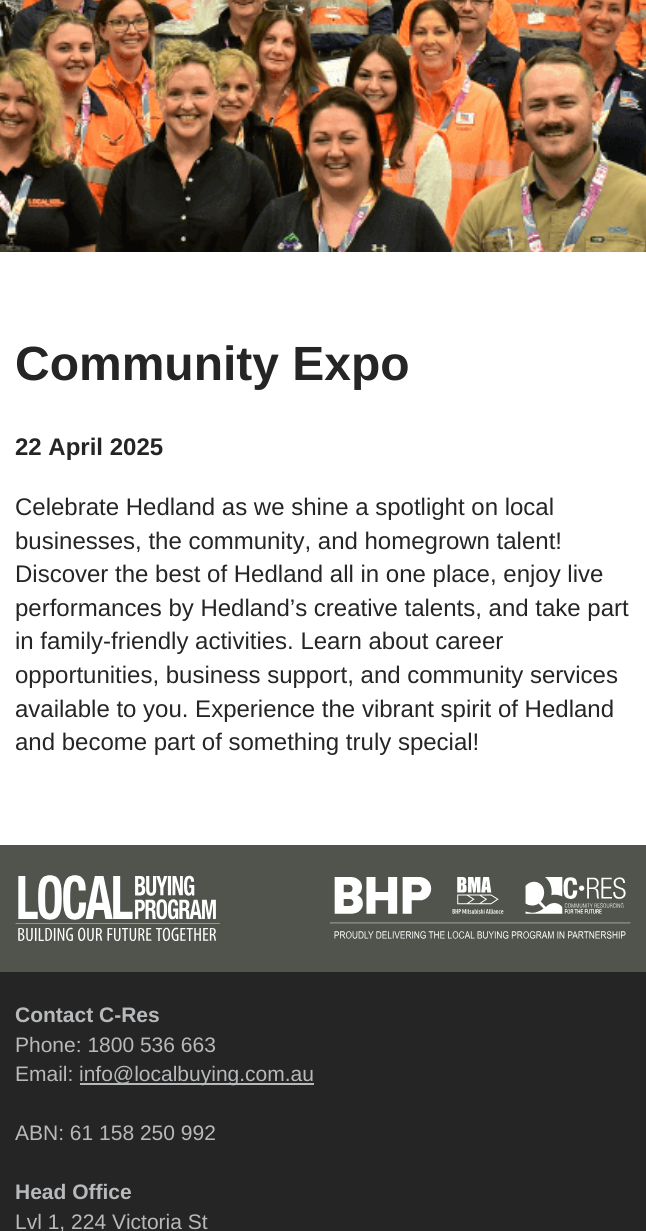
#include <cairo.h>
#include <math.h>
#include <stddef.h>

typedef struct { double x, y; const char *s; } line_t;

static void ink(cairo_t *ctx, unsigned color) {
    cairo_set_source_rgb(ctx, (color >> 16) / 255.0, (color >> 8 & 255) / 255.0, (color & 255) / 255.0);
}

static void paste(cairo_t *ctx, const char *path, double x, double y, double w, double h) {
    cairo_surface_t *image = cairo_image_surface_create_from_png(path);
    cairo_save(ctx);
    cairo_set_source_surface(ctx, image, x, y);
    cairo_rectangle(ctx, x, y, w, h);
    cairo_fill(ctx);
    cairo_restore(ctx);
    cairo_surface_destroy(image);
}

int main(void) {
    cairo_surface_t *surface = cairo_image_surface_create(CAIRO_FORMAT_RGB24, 646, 1231);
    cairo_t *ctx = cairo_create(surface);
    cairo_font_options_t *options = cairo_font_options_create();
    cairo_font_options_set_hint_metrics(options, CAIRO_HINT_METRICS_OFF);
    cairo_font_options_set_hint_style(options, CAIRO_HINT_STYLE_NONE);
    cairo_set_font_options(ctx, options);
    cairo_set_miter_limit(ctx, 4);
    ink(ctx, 0xFFFFFF);
    cairo_paint(ctx);
    paste(ctx, "media/1.png", 0, 0, 646, 252);
    cairo_select_font_face(ctx, "Liberation Sans", CAIRO_FONT_SLANT_NORMAL, CAIRO_FONT_WEIGHT_BOLD);
    cairo_set_font_size(ctx, 48);
    ink(ctx, 0x252525);
    cairo_move_to(ctx, 15, 380);
    cairo_show_text(ctx, "Community Expo");
    cairo_set_font_size(ctx, 24);
    cairo_move_to(ctx, 15, 455);
    cairo_show_text(ctx, "22 April 2025");
    cairo_select_font_face(ctx, "Liberation Sans", CAIRO_FONT_SLANT_NORMAL, CAIRO_FONT_WEIGHT_NORMAL);
    {
        static const line_t items[] = {
            {15, 515, "Celebrate Hedland as we shine a spotlight on local"},
            {15, 549, "businesses, the community, and homegrown talent!"},
            {15, 582, "Discover the best of Hedland all in one place, enjoy live"},
            {15, 616, "performances by Hedland’s creative talents, and take part"},
            {15, 649, "in family-friendly activities. Learn about career"},
            {15, 683, "opportunities, business support, and community services"},
            {15, 717, "available to you. Experience the vibrant spirit of Hedland"},
            {15, 750, "and become part of something truly special!"},
        };
        for (size_t i = 0; i < sizeof items / sizeof *items; i++) {
            cairo_move_to(ctx, items[i].x, items[i].y);
            cairo_show_text(ctx, items[i].s);
        }
    }
    ink(ctx, 0x50544D);
    cairo_rectangle(ctx, 0, 845, 646, 127);
    cairo_fill(ctx);
    paste(ctx, "media/2.png", 15, 875, 205, 66);
    paste(ctx, "media/3.png", 330, 877, 301, 62);
    ink(ctx, 0x252525);
    cairo_rectangle(ctx, 0, 972, 646, 259);
    cairo_fill(ctx);
    cairo_select_font_face(ctx, "Liberation Sans", CAIRO_FONT_SLANT_NORMAL, CAIRO_FONT_WEIGHT_BOLD);
    cairo_set_font_size(ctx, 21);
    ink(ctx, 0xB7B9BB);
    cairo_move_to(ctx, 15, 1022);
    cairo_show_text(ctx, "Contact C-Res");
    cairo_select_font_face(ctx, "Liberation Sans", CAIRO_FONT_SLANT_NORMAL, CAIRO_FONT_WEIGHT_NORMAL);
    cairo_move_to(ctx, 15, 1052);
    cairo_show_text(ctx, "Phone: 1800 536 663");
    cairo_move_to(ctx, 15, 1081);
    cairo_show_text(ctx, "Email:");
    cairo_rectangle(ctx, 80, 1083, 234, 2);
    cairo_fill(ctx);
    cairo_move_to(ctx, 79, 1081);
    cairo_show_text(ctx, "info@localbuying.com.au");
    cairo_move_to(ctx, 15, 1140);
    cairo_show_text(ctx, "ABN: 61 158 250 992");
    cairo_select_font_face(ctx, "Liberation Sans", CAIRO_FONT_SLANT_NORMAL, CAIRO_FONT_WEIGHT_BOLD);
    cairo_move_to(ctx, 15, 1199);
    cairo_show_text(ctx, "Head Office");
    cairo_select_font_face(ctx, "Liberation Sans", CAIRO_FONT_SLANT_NORMAL, CAIRO_FONT_WEIGHT_NORMAL);
    cairo_move_to(ctx, 15, 1229);
    cairo_show_text(ctx, "Lvl 1, 224 Victoria St");
    cairo_surface_write_to_png(surface, "image.png");
    cairo_font_options_destroy(options);
    cairo_destroy(ctx);
    cairo_surface_destroy(surface);
    return 0;
}
